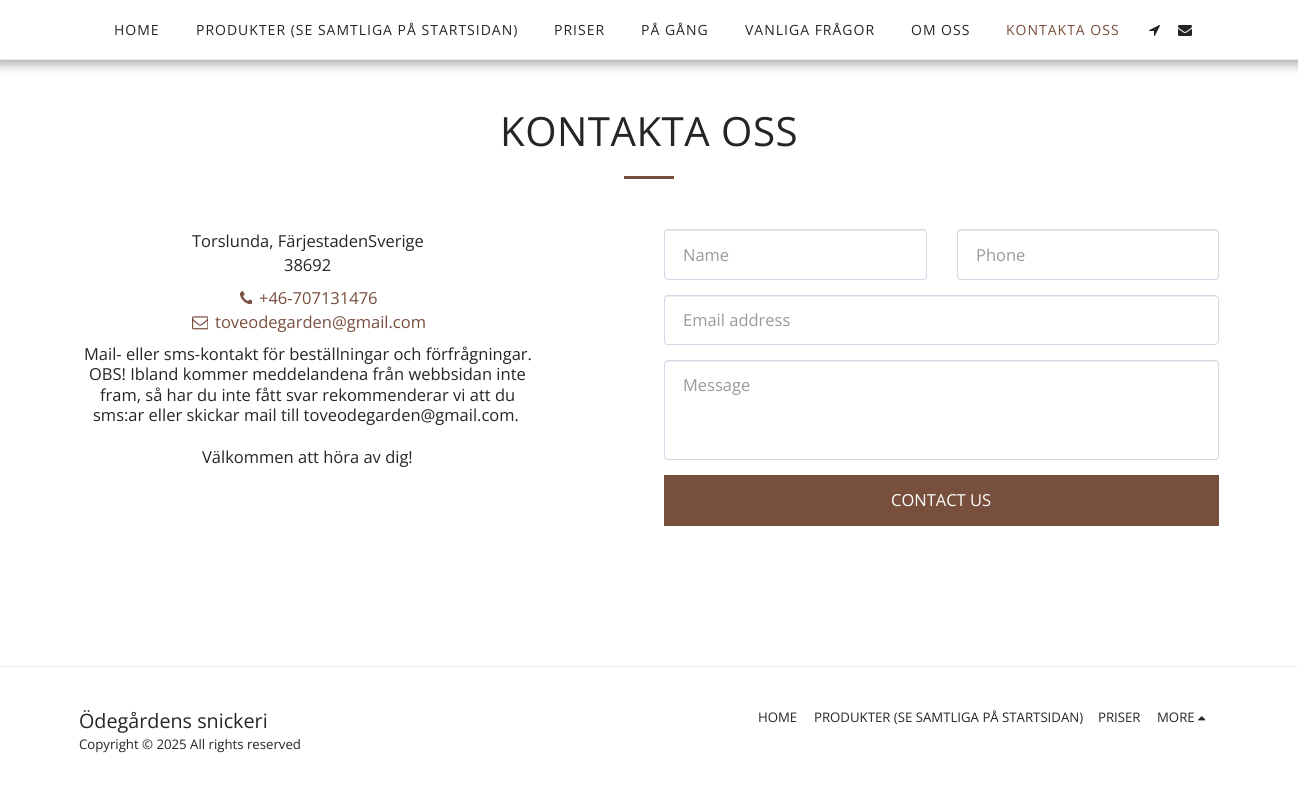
#include <cairo.h>
#include <math.h>
#include <stddef.h>

typedef struct { double x, y; const char *s; } line_t;

static void ink(cairo_t *ctx, unsigned color) {
    cairo_set_source_rgb(ctx, (color >> 16) / 255.0, (color >> 8 & 255) / 255.0, (color & 255) / 255.0);
}

static void write_spaced(cairo_t *ctx, double x, double y, const char *s, double letter, double word) {
    cairo_move_to(ctx, x, y);
    while (*s) {
        char ch[5] = {0};
        int n = 0;
        do ch[n++] = *s++; while ((*s & 0xC0) == 0x80);
        cairo_show_text(ctx, ch);
        cairo_rel_move_to(ctx, letter + word * (*ch == ' '), 0);
    }
}

static void round_path(cairo_t *ctx, double x, double y, double w, double h, double r) {
    cairo_new_sub_path(ctx);
    cairo_arc(ctx, x + w - r, y + h - r, r, 0, M_PI / 2);
    cairo_arc(ctx, x + r, y + h - r, r, M_PI / 2, M_PI);
    cairo_arc(ctx, x + r, y + r, r, M_PI, 1.5 * M_PI);
    cairo_arc(ctx, x + w - r, y + r, r, 1.5 * M_PI, 2 * M_PI);
    cairo_close_path(ctx);
}

static void blur_box(cairo_t *ctx, double x, double y, double w, double h, double r, double blur, double alpha) {
    cairo_push_group_with_content(ctx, CAIRO_CONTENT_ALPHA);
    cairo_set_operator(ctx, CAIRO_OPERATOR_SOURCE);
    for (int i = 15; i >= -15 && fmin(w, h) + blur * i / 3 > 0; i -= 2) {
        double e = blur * i / 6;
        cairo_set_source_rgba(ctx, 0, 0, 0, alpha * erfc((i - 1) / 8.5) / 2);
        round_path(ctx, x - e, y - e, w + 2 * e, h + 2 * e, fmax(0, fmin(r + e + blur * .6, fmin(w, h) / 2 + e)));
        cairo_fill(ctx);
    }
    cairo_pattern_t *soft = cairo_pop_group(ctx);
    cairo_mask(ctx, soft);
    cairo_pattern_destroy(soft);
}

static void paste(cairo_t *ctx, const char *path, double x, double y, double w, double h) {
    cairo_surface_t *image = cairo_image_surface_create_from_png(path);
    cairo_save(ctx);
    cairo_set_source_surface(ctx, image, x, y);
    cairo_rectangle(ctx, x, y, w, h);
    cairo_fill(ctx);
    cairo_restore(ctx);
    cairo_surface_destroy(image);
}

int main(void) {
    cairo_surface_t *surface = cairo_image_surface_create(CAIRO_FORMAT_RGB24, 1298, 794);
    cairo_t *ctx = cairo_create(surface);
    cairo_font_options_t *options = cairo_font_options_create();
    cairo_font_options_set_hint_metrics(options, CAIRO_HINT_METRICS_OFF);
    cairo_font_options_set_hint_style(options, CAIRO_HINT_STYLE_NONE);
    cairo_set_font_options(ctx, options);
    cairo_set_miter_limit(ctx, 4);
    ink(ctx, 0xFFFFFF);
    cairo_paint(ctx);
    ink(ctx, 0x000000);
    blur_box(ctx, -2, 0, 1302, 64, 0, 6, 0.35);
    ink(ctx, 0xFFFFFF);
    cairo_rectangle(ctx, 0, 0, 1298, 59);
    cairo_fill(ctx);
    ink(ctx, 0xEBEBEB);
    cairo_rectangle(ctx, 0, 59, 1298, 1);
    cairo_fill(ctx);
    cairo_select_font_face(ctx, "Open Sans", CAIRO_FONT_SLANT_NORMAL, CAIRO_FONT_WEIGHT_NORMAL);
    cairo_set_font_size(ctx, 14);
    ink(ctx, 0x252525);
    {
        static const line_t items[] = {
            {114, 35, "HOME"},
            {196, 35, "PRODUKTER (SE SAMTLIGA PÅ STARTSIDAN)"},
            {554, 35, "PRISER"},
            {641, 35, "PÅ GÅNG"},
            {745, 35, "VANLIGA FRÅGOR"},
            {911, 35, "OM OSS"},
        };
        for (size_t i = 0; i < sizeof items / sizeof *items; i++) {
            write_spaced(ctx, items[i].x, items[i].y, items[i].s, 1, 0);
        }
    }
    ink(ctx, 0x784E3D);
    write_spaced(ctx, 1006, 35, "KONTAKTA OSS", 1, 0);
    paste(ctx, "media/1.png", 1149, 25, 11, 11);
    paste(ctx, "media/2.png", 1178, 25, 14, 11);
    cairo_set_font_size(ctx, 40.25);
    ink(ctx, 0x252525);
    write_spaced(ctx, 500, 146, "KONTAKTA OSS", 0.5, 0);
    ink(ctx, 0x784E3D);
    cairo_rectangle(ctx, 624, 176, 50, 3);
    cairo_fill(ctx);
    cairo_set_font_size(ctx, 16.5);
    ink(ctx, 0x252525);
    cairo_move_to(ctx, 192, 247);
    cairo_show_text(ctx, "Torslunda, FärjestadenSverige");
    cairo_move_to(ctx, 284, 271);
    cairo_show_text(ctx, "38692");
    paste(ctx, "media/3.png", 240, 291, 12, 14);
    ink(ctx, 0x784E3D);
    cairo_move_to(ctx, 259, 304);
    cairo_show_text(ctx, "+46-707131476");
    paste(ctx, "media/4.png", 192, 316, 16, 14);
    cairo_move_to(ctx, 215, 328);
    cairo_show_text(ctx, "toveodegarden@gmail.com");
    ink(ctx, 0x252525);
    {
        static const line_t items[] = {
            {84, 360, "Mail- eller sms-kontakt för beställningar och förfrågningar."},
            {89, 380, "OBS! Ibland kommer meddelandena från webbsidan inte"},
            {100, 401, "fram, så har du inte fått svar rekommenderar vi att du"},
            {93, 421, "sms:ar eller skickar mail till toveodegarden@gmail.com."},
            {202, 463, "Välkommen att höra av dig!"},
        };
        for (size_t i = 0; i < sizeof items / sizeof *items; i++) {
            cairo_move_to(ctx, items[i].x, items[i].y);
            cairo_show_text(ctx, items[i].s);
        }
    }
    ink(ctx, 0xECECEC);
    cairo_new_path(ctx);
    cairo_move_to(ctx, 668, 231);
    cairo_line_to(ctx, 924, 231);
    cairo_line_to(ctx, 926, 232);
    cairo_line_to(ctx, 926, 234);
    cairo_line_to(ctx, 926, 233);
    cairo_curve_to(ctx, 926, 231, 925, 230, 923, 230);
    cairo_line_to(ctx, 668, 230);
    cairo_curve_to(ctx, 666, 230, 665, 231, 665, 233);
    cairo_line_to(ctx, 665, 234);
    cairo_curve_to(ctx, 665, 232, 666, 231, 668, 231);
    cairo_close_path(ctx);
    cairo_fill(ctx);
    round_path(ctx, 664.5, 229.5, 262, 50, 3.5);
    ink(ctx, 0xD4D7E5);
    cairo_set_line_width(ctx, 1);
    cairo_stroke(ctx);
    ink(ctx, 0x999999);
    cairo_move_to(ctx, 683, 261);
    cairo_show_text(ctx, "Name");
    ink(ctx, 0xECECEC);
    cairo_new_path(ctx);
    cairo_move_to(ctx, 961, 231);
    cairo_line_to(ctx, 1216, 231);
    cairo_line_to(ctx, 1218, 232);
    cairo_line_to(ctx, 1218, 234);
    cairo_line_to(ctx, 1218, 233);
    cairo_curve_to(ctx, 1218, 231, 1217, 230, 1215, 230);
    cairo_line_to(ctx, 961, 230);
    cairo_curve_to(ctx, 959, 230, 958, 231, 958, 233);
    cairo_line_to(ctx, 958, 234);
    cairo_curve_to(ctx, 958, 232, 959, 231, 961, 231);
    cairo_close_path(ctx);
    cairo_fill(ctx);
    round_path(ctx, 957.5, 229.5, 261, 50, 3.5);
    ink(ctx, 0xD4D7E5);
    cairo_stroke(ctx);
    ink(ctx, 0x999999);
    cairo_move_to(ctx, 976, 261);
    cairo_show_text(ctx, "Phone");
    ink(ctx, 0xECECEC);
    cairo_new_path(ctx);
    cairo_move_to(ctx, 668, 297);
    cairo_line_to(ctx, 1215, 297);
    cairo_curve_to(ctx, 1217, 297, 1218, 298, 1218, 300);
    cairo_curve_to(ctx, 1218, 298, 1217, 296, 1215, 296);
    cairo_line_to(ctx, 668, 296);
    cairo_line_to(ctx, 666, 297);
    cairo_line_to(ctx, 665, 298);
    cairo_line_to(ctx, 665, 300);
    cairo_curve_to(ctx, 665, 298, 666, 297, 668, 297);
    cairo_close_path(ctx);
    cairo_fill(ctx);
    round_path(ctx, 664.5, 295.5, 554, 49, 3.5);
    ink(ctx, 0xD4D7E5);
    cairo_stroke(ctx);
    ink(ctx, 0x999999);
    cairo_move_to(ctx, 683, 326);
    cairo_show_text(ctx, "Email address");
    ink(ctx, 0xECECEC);
    cairo_new_path(ctx);
    cairo_move_to(ctx, 668, 362);
    cairo_line_to(ctx, 1215, 362);
    cairo_curve_to(ctx, 1217, 362, 1218, 363, 1218, 365);
    cairo_curve_to(ctx, 1218, 363, 1217, 361, 1215, 361);
    cairo_line_to(ctx, 668, 361);
    cairo_line_to(ctx, 666, 362);
    cairo_line_to(ctx, 665, 363);
    cairo_line_to(ctx, 665, 365);
    cairo_curve_to(ctx, 665, 363, 666, 362, 668, 362);
    cairo_close_path(ctx);
    cairo_fill(ctx);
    round_path(ctx, 664.5, 360.5, 554, 99, 3.5);
    ink(ctx, 0xD4D7E5);
    cairo_stroke(ctx);
    ink(ctx, 0x999999);
    cairo_move_to(ctx, 683, 391);
    cairo_show_text(ctx, "Message");
    ink(ctx, 0x784E3D);
    cairo_rectangle(ctx, 664, 475, 555, 51);
    cairo_fill(ctx);
    ink(ctx, 0xFFFFFF);
    cairo_move_to(ctx, 891, 506);
    cairo_show_text(ctx, "CONTACT US");
    ink(ctx, 0xEBEBEB);
    cairo_rectangle(ctx, 0, 666, 1298, 1);
    cairo_fill(ctx);
    cairo_set_font_size(ctx, 19.75);
    ink(ctx, 0x252525);
    cairo_move_to(ctx, 79, 728);
    cairo_show_text(ctx, "Ödegårdens snickeri");
    cairo_set_font_size(ctx, 13.2);
    {
        static const line_t items[] = {
            {79, 749, "Copyright © 2025 All rights reserved"},
            {758, 722, "HOME"},
            {814, 722, "PRODUKTER (SE SAMTLIGA PÅ STARTSIDAN)"},
            {1098, 722, "PRISER"},
            {1157, 722, "MORE"},
        };
        for (size_t i = 0; i < sizeof items / sizeof *items; i++) {
            cairo_move_to(ctx, items[i].x, items[i].y);
            cairo_show_text(ctx, items[i].s);
        }
    }
    paste(ctx, "media/5.png", 1198, 716, 7, 5);
    cairo_surface_write_to_png(surface, "image.png");
    cairo_font_options_destroy(options);
    cairo_destroy(ctx);
    cairo_surface_destroy(surface);
    return 0;
}
